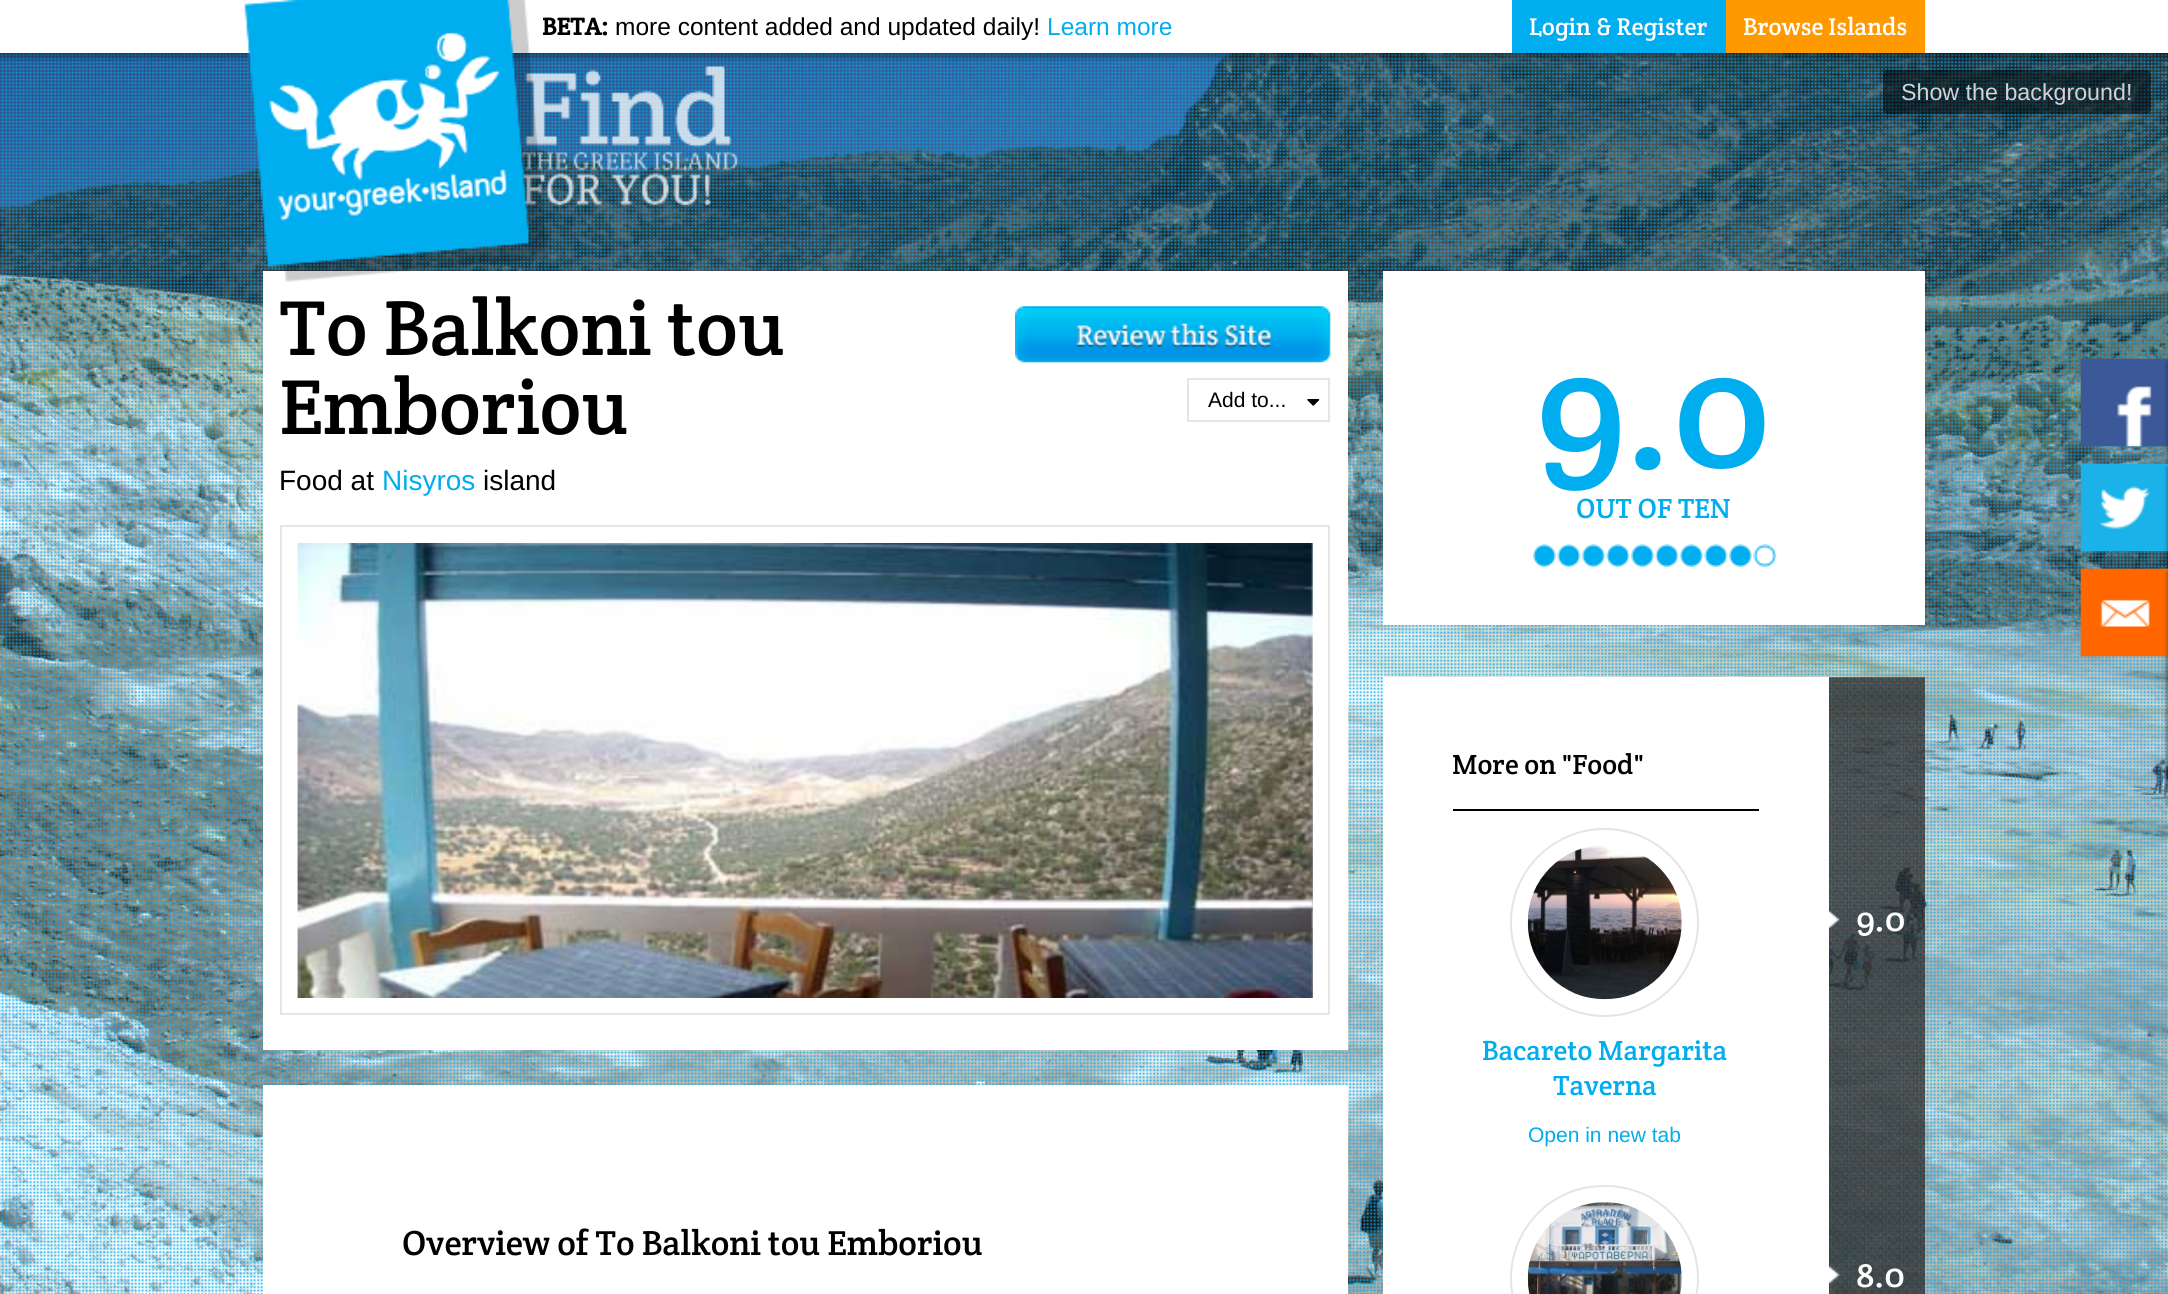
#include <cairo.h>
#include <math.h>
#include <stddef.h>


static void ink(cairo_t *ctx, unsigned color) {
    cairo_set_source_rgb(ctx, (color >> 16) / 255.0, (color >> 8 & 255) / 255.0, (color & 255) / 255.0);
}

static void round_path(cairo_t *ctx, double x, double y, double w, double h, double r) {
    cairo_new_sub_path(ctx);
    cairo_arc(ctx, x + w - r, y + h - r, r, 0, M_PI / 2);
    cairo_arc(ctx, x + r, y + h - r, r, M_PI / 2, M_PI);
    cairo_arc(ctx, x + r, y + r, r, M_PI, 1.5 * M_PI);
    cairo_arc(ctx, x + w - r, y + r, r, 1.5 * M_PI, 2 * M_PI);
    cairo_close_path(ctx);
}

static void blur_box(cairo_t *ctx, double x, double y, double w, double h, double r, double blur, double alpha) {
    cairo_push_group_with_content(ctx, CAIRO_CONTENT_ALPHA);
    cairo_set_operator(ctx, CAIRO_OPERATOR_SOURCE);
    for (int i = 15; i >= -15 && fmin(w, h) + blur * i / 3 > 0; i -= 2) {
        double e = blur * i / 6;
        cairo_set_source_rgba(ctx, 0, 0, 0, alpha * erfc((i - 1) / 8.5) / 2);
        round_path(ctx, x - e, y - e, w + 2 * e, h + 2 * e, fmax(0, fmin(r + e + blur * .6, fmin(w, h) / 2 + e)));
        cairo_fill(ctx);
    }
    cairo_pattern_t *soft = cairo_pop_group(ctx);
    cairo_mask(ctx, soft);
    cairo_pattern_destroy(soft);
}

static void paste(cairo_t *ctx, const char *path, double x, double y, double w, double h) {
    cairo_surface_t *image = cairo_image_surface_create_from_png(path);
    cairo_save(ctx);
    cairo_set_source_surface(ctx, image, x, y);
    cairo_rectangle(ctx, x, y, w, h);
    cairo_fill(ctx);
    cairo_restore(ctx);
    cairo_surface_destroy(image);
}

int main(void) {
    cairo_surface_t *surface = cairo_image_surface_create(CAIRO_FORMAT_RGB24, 2168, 1294);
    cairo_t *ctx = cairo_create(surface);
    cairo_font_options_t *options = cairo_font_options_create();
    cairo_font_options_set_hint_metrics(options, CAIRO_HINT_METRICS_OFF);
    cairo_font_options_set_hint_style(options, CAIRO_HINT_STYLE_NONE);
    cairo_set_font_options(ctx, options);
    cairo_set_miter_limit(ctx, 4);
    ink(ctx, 0xFFFFFF);
    cairo_paint(ctx);
    paste(ctx, "media/6.png", 0, 53, 2168, 1241);
    paste(ctx, "media/7.png", 0, 53, 2168, 1241);
    ink(ctx, 0x000000);
    blur_box(ctx, -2, 2, 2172, 56, 0, 2.5, 0.3);
    ink(ctx, 0xFFFFFF);
    cairo_rectangle(ctx, 0, 0, 2168, 53);
    cairo_fill(ctx);
    cairo_select_font_face(ctx, "Crete Round", CAIRO_FONT_SLANT_NORMAL, CAIRO_FONT_WEIGHT_BOLD);
    cairo_set_font_size(ctx, 24.5);
    ink(ctx, 0x000000);
    cairo_move_to(ctx, 542, 35);
    cairo_show_text(ctx, "BETA:");
    paste(ctx, "media/2.png", 521, 66, 218, 139);
    ink(ctx, 0xFFFFFF);
    cairo_rectangle(ctx, 263, 271, 1085, 779);
    cairo_fill(ctx);
    paste(ctx, "media/1.png", 244, 0, 304, 282);
    cairo_select_font_face(ctx, "Liberation Sans", CAIRO_FONT_SLANT_NORMAL, CAIRO_FONT_WEIGHT_NORMAL);
    ink(ctx, 0x000000);
    cairo_move_to(ctx, 615, 35);
    cairo_show_text(ctx, "more content added and updated daily!");
    ink(ctx, 0x00ADEE);
    cairo_move_to(ctx, 1047, 35);
    cairo_show_text(ctx, "Learn more");
    cairo_rectangle(ctx, 1512, 0, 214, 53);
    cairo_fill(ctx);
    cairo_select_font_face(ctx, "Crete Round", CAIRO_FONT_SLANT_NORMAL, CAIRO_FONT_WEIGHT_NORMAL);
    ink(ctx, 0xFFFFFF);
    cairo_move_to(ctx, 1529, 35);
    cairo_show_text(ctx, "Login & Register");
    ink(ctx, 0xFF9900);
    cairo_rectangle(ctx, 1726, 0, 199, 53);
    cairo_fill(ctx);
    ink(ctx, 0xFFFFFF);
    cairo_move_to(ctx, 1743, 35);
    cairo_show_text(ctx, "Browse Islands");
    cairo_set_source_rgba(ctx, 0, 0, 0, 0.5);
    round_path(ctx, 1883, 70, 268, 44, 5);
    cairo_fill(ctx);
    cairo_select_font_face(ctx, "Liberation Sans", CAIRO_FONT_SLANT_NORMAL, CAIRO_FONT_WEIGHT_NORMAL);
    cairo_set_font_size(ctx, 23.25);
    ink(ctx, 0xD0D4D6);
    cairo_move_to(ctx, 1901, 100);
    cairo_show_text(ctx, "Show the background!");
    paste(ctx, "media/3.png", 2080, 358, 88, 89);
    ink(ctx, 0x000000);
    blur_box(ctx, 2167, 362, 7, 419, 0, 2, 0.3);
    paste(ctx, "media/4.png", 2080, 463, 88, 89);
    blur_box(ctx, 2167, 467, 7, 95, 0, 2, 0.3);
    paste(ctx, "media/5.png", 2080, 568, 88, 89);
    blur_box(ctx, 2167, 572, 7, 235, 0, 2, 0.3);
    cairo_select_font_face(ctx, "Crete Round", CAIRO_FONT_SLANT_NORMAL, CAIRO_FONT_WEIGHT_NORMAL);
    cairo_set_font_size(ctx, 78.75);
    ink(ctx, 0x000000);
    cairo_move_to(ctx, 279, 355);
    cairo_show_text(ctx, "To Balkoni tou");
    cairo_move_to(ctx, 279, 434);
    cairo_show_text(ctx, "Emboriou");
    paste(ctx, "media/8.png", 1015, 306, 316, 57);
    cairo_rectangle(ctx, 1188, 379, 141, 42);
    ink(ctx, 0xE5E5E5);
    cairo_stroke(ctx);
    cairo_select_font_face(ctx, "Liberation Sans", CAIRO_FONT_SLANT_NORMAL, CAIRO_FONT_WEIGHT_NORMAL);
    cairo_set_font_size(ctx, 21);
    ink(ctx, 0x000000);
    cairo_move_to(ctx, 1208, 407);
    cairo_show_text(ctx, "Add to...");
    paste(ctx, "media/9.png", 1307, 399, 13, 7);
    cairo_set_font_size(ctx, 28);
    cairo_move_to(ctx, 279, 490);
    cairo_show_text(ctx, "Food at");
    ink(ctx, 0x00ADEE);
    cairo_move_to(ctx, 382, 490);
    cairo_show_text(ctx, "Nisyros");
    ink(ctx, 0x000000);
    cairo_move_to(ctx, 483, 490);
    cairo_show_text(ctx, "island");
    cairo_rectangle(ctx, 281, 526, 1048, 488);
    ink(ctx, 0xE5E5E5);
    cairo_stroke(ctx);
    paste(ctx, "media/10.png", 297, 543, 1016, 455);
    paste(ctx, "media/11.png", 1311, 543, 2, 455);
    ink(ctx, 0xFFFFFF);
    cairo_rectangle(ctx, 263, 1085, 1085, 209);
    cairo_fill(ctx);
    cairo_select_font_face(ctx, "Crete Round", CAIRO_FONT_SLANT_NORMAL, CAIRO_FONT_WEIGHT_NORMAL);
    cairo_set_font_size(ctx, 35);
    ink(ctx, 0x000000);
    cairo_move_to(ctx, 402, 1255);
    cairo_show_text(ctx, "Overview of To Balkoni tou Emboriou");
    ink(ctx, 0xFFFFFF);
    cairo_rectangle(ctx, 1383, 271, 542, 354);
    cairo_fill(ctx);
    cairo_set_font_size(ctx, 168);
    ink(ctx, 0x00ADEE);
    cairo_move_to(ctx, 1535, 467);
    cairo_show_text(ctx, "9.0");
    cairo_set_font_size(ctx, 28);
    cairo_move_to(ctx, 1576, 518);
    cairo_show_text(ctx, "OUT OF TEN");
    paste(ctx, "media/12.png", 1533, 544, 23, 23);
    paste(ctx, "media/13.png", 1557, 544, 24, 23);
    paste(ctx, "media/14.png", 1582, 544, 23, 23);
    paste(ctx, "media/15.png", 1606, 544, 24, 23);
    paste(ctx, "media/14.png", 1631, 544, 23, 23);
    paste(ctx, "media/15.png", 1655, 544, 24, 23);
    paste(ctx, "media/14.png", 1680, 544, 23, 23);
    paste(ctx, "media/15.png", 1704, 544, 24, 23);
    paste(ctx, "media/14.png", 1729, 544, 23, 23);
    paste(ctx, "media/16.png", 1753, 544, 24, 23);
    paste(ctx, "media/17.png", 1829, 677, 96, 617);
    ink(ctx, 0xFFFFFF);
    cairo_rectangle(ctx, 1383, 677, 446, 617);
    cairo_fill(ctx);
    ink(ctx, 0x000000);
    cairo_rectangle(ctx, 1453, 809, 306, 2);
    cairo_fill(ctx);
    cairo_move_to(ctx, 1452, 774);
    cairo_show_text(ctx, "More on \"Food\"");
    paste(ctx, "media/18.png", 1828, 910, 12, 19);
    cairo_set_font_size(ctx, 35);
    ink(ctx, 0xFFFFFF);
    cairo_move_to(ctx, 1856, 931);
    cairo_show_text(ctx, "9.0");
    cairo_new_path(ctx);
    cairo_arc(ctx, 1604.5, 922.5, 93.5, 0, 2 * M_PI);
    ink(ctx, 0xE5E5E5);
    cairo_stroke(ctx);
    paste(ctx, "media/19.png", 1527, 845, 155, 155);
    cairo_set_font_size(ctx, 28);
    ink(ctx, 0x00ADEE);
    cairo_move_to(ctx, 1482, 1060);
    cairo_show_text(ctx, "Bacareto Margarita");
    cairo_move_to(ctx, 1553, 1095);
    cairo_show_text(ctx, "Taverna");
    cairo_select_font_face(ctx, "Liberation Sans", CAIRO_FONT_SLANT_NORMAL, CAIRO_FONT_WEIGHT_NORMAL);
    cairo_set_font_size(ctx, 21);
    cairo_move_to(ctx, 1528, 1142);
    cairo_show_text(ctx, "Open in new tab");
    round_path(ctx, 1511, 1186, 187, 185, 92.5);
    ink(ctx, 0xE5E5E5);
    cairo_stroke(ctx);
    paste(ctx, "media/20.png", 1527, 1202, 155, 92);
    paste(ctx, "media/21.png", 1828, 1265, 12, 19);
    cairo_select_font_face(ctx, "Crete Round", CAIRO_FONT_SLANT_NORMAL, CAIRO_FONT_WEIGHT_NORMAL);
    cairo_set_font_size(ctx, 35);
    ink(ctx, 0xFFFFFF);
    cairo_move_to(ctx, 1856, 1287);
    cairo_show_text(ctx, "8.0");
    cairo_surface_write_to_png(surface, "image.png");
    cairo_font_options_destroy(options);
    cairo_destroy(ctx);
    cairo_surface_destroy(surface);
    return 0;
}
